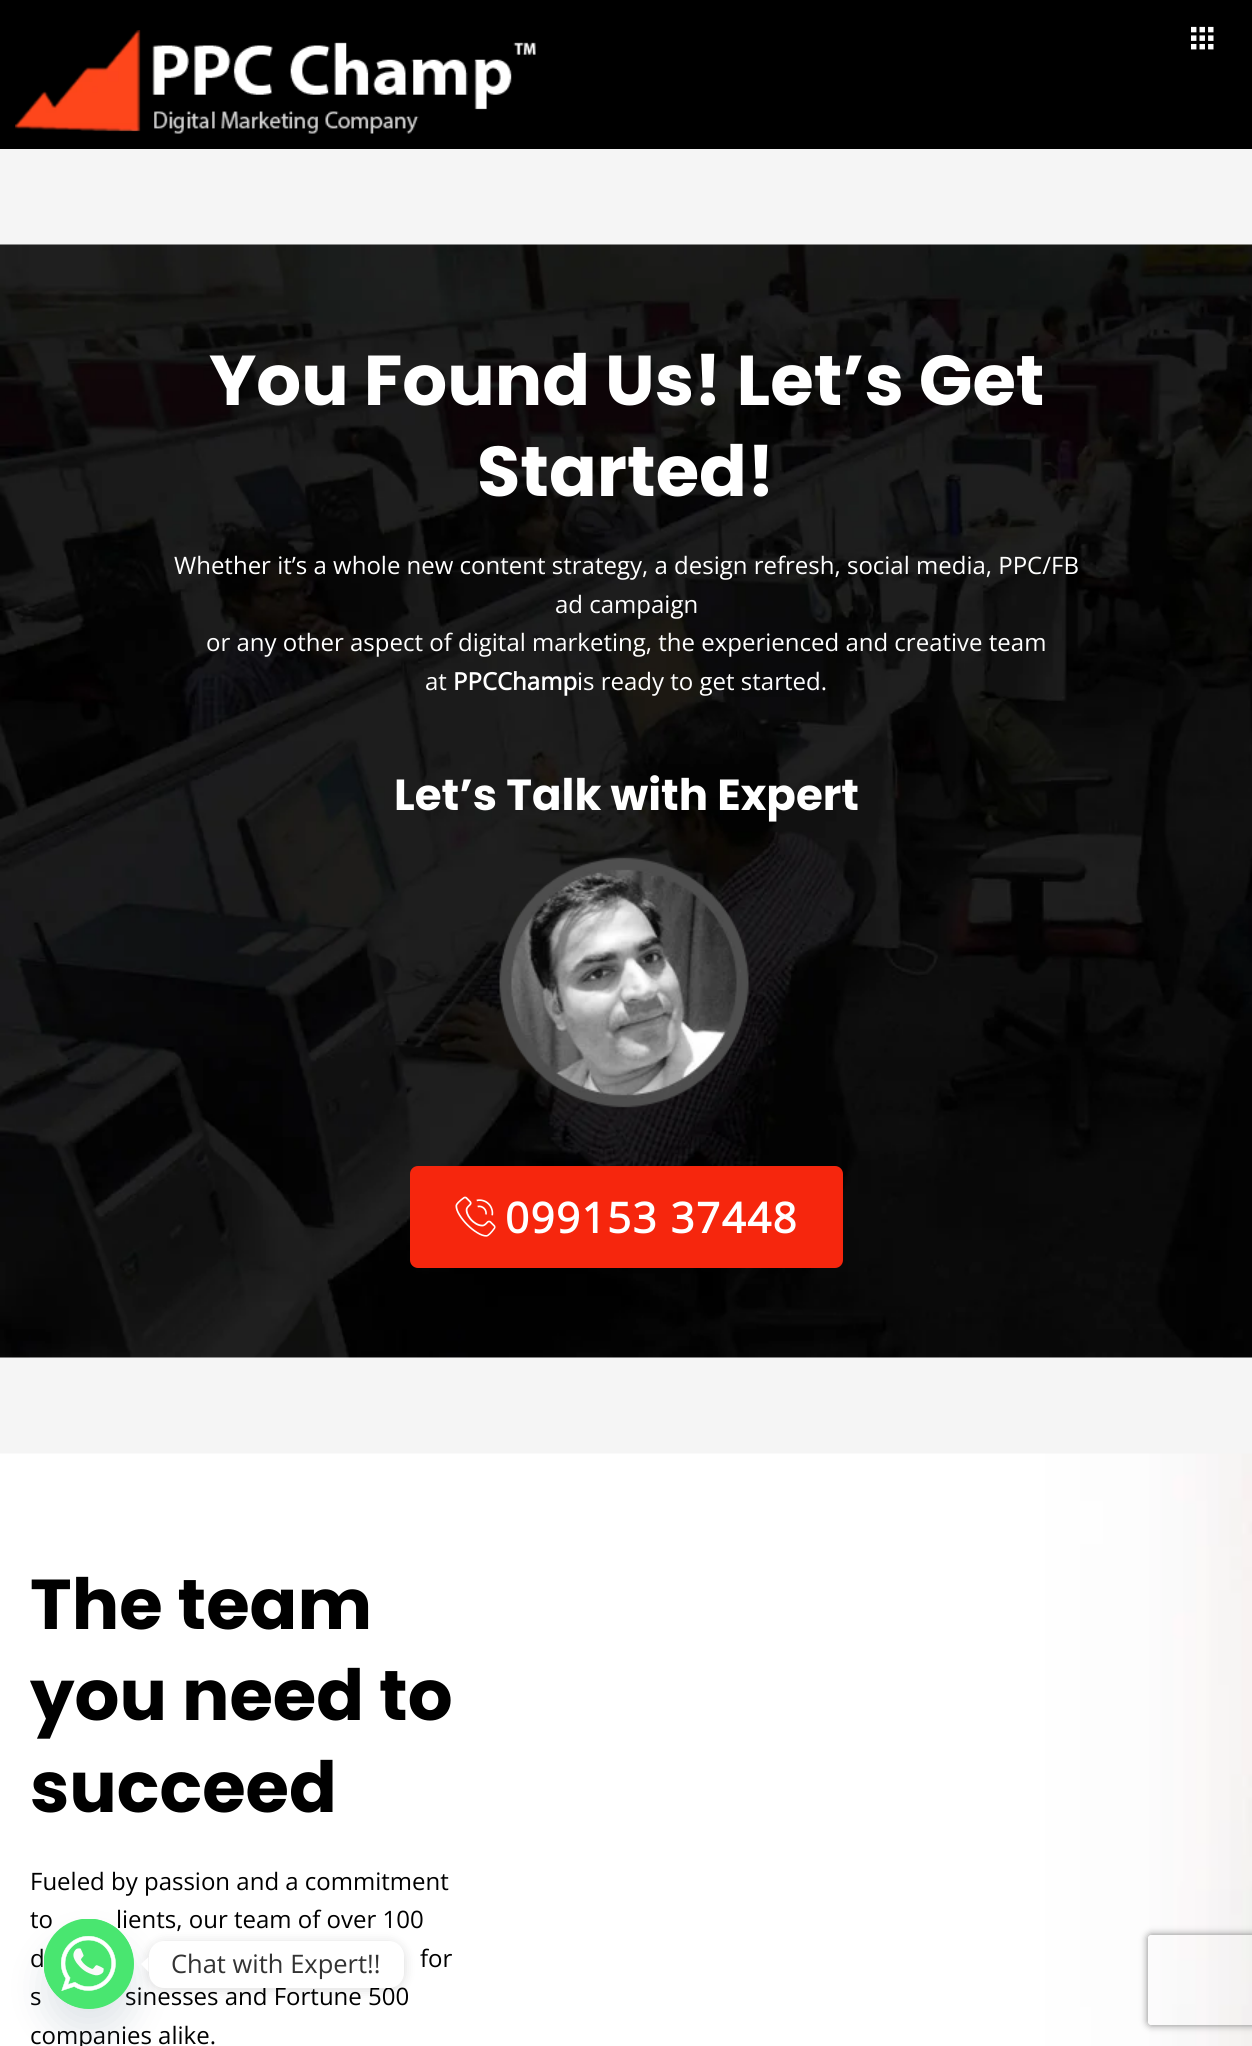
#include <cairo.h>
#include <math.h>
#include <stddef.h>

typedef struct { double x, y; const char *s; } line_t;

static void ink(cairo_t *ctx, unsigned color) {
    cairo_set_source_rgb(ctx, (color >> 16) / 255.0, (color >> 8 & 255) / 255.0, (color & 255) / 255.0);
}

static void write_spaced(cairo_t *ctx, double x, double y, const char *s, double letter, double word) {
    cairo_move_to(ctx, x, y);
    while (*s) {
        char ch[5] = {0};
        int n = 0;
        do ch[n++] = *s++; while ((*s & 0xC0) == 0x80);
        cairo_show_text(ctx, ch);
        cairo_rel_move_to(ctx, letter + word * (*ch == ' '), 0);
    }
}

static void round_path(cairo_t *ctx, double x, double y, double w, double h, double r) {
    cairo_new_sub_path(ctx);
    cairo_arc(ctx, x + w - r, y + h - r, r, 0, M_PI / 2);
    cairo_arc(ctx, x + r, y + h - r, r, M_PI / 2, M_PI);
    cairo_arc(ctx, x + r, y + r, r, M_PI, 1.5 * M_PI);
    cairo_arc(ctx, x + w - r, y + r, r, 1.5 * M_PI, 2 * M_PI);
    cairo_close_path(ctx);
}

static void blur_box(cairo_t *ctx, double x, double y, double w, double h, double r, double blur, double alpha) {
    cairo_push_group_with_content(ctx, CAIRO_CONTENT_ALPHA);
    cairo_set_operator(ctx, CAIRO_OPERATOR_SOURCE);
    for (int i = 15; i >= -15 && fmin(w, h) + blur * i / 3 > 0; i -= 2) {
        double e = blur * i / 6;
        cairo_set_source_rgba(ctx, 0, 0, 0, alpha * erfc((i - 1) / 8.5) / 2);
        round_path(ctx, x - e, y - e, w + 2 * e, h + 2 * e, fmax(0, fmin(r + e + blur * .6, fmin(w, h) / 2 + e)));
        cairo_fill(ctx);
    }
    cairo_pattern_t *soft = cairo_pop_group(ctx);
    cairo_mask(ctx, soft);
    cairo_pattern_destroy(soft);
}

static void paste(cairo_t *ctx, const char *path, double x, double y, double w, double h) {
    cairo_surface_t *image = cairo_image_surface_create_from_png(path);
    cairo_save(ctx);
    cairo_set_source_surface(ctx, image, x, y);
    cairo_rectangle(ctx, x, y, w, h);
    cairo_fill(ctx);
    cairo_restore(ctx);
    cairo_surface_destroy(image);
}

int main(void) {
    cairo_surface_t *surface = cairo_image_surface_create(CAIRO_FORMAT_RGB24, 1252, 2046);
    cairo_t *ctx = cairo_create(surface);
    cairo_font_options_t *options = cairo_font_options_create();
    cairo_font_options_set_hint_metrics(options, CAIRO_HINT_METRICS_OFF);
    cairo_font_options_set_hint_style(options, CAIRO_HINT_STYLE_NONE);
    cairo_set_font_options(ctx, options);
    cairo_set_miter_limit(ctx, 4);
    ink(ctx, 0xF5F5F5);
    cairo_paint(ctx);
    ink(ctx, 0x000000);
    cairo_rectangle(ctx, 0, 0, 1252, 149);
    cairo_fill(ctx);
    paste(ctx, "media/1.png", 15, 30, 521, 104);
    paste(ctx, "media/2.png", 1191, 26, 23, 24);
    ink(ctx, 0xFFFFFF);
    cairo_rectangle(ctx, 30, 1357, 1193, 1);
    cairo_fill(ctx);
    paste(ctx, "media/3.png", 0, 244, 1252, 1114);
    cairo_select_font_face(ctx, "Poppins", CAIRO_FONT_SLANT_NORMAL, CAIRO_FONT_WEIGHT_BOLD);
    cairo_set_font_size(ctx, 70.5);
    cairo_move_to(ctx, 209, 405);
    cairo_show_text(ctx, "You Found Us! Let’s Get");
    cairo_move_to(ctx, 477, 496);
    cairo_show_text(ctx, "Started!");
    cairo_select_font_face(ctx, "Open Sans", CAIRO_FONT_SLANT_NORMAL, CAIRO_FONT_WEIGHT_NORMAL);
    cairo_set_font_size(ctx, 24);
    {
        static const line_t items[] = {
            {174, 574, "Whether it’s a whole new content strategy, a design refresh, social media, PPC/FB"},
            {555, 613, "ad campaign"},
            {206, 651, "or any other aspect of digital marketing, the experienced and creative team"},
            {425, 690, "at"},
        };
        for (size_t i = 0; i < sizeof items / sizeof *items; i++) {
            cairo_move_to(ctx, items[i].x, items[i].y);
            cairo_show_text(ctx, items[i].s);
        }
    }
    cairo_select_font_face(ctx, "Open Sans", CAIRO_FONT_SLANT_NORMAL, CAIRO_FONT_WEIGHT_BOLD);
    cairo_move_to(ctx, 453, 690);
    cairo_show_text(ctx, "PPCChamp");
    cairo_select_font_face(ctx, "Open Sans", CAIRO_FONT_SLANT_NORMAL, CAIRO_FONT_WEIGHT_NORMAL);
    cairo_move_to(ctx, 577, 690);
    cairo_show_text(ctx, "is ready to get started.");
    cairo_select_font_face(ctx, "Poppins", CAIRO_FONT_SLANT_NORMAL, CAIRO_FONT_WEIGHT_BOLD);
    cairo_set_font_size(ctx, 43.5);
    cairo_move_to(ctx, 394, 810);
    cairo_show_text(ctx, "Let’s Talk with Expert");
    paste(ctx, "media/4.png", 499, 857, 250, 251);
    ink(ctx, 0xF6260D);
    round_path(ctx, 410, 1166, 433, 102, 8);
    cairo_fill(ctx);
    paste(ctx, "media/5.png", 455, 1196, 41, 41);
    cairo_select_font_face(ctx, "Open Sans", CAIRO_FONT_SLANT_NORMAL, CAIRO_FONT_WEIGHT_BOLD);
    cairo_set_font_size(ctx, 42);
    ink(ctx, 0xFFFFFF);
    write_spaced(ctx, 505, 1233, "099153 37448", 1.5, 0);
    paste(ctx, "media/6.png", 0, 1453, 1252, 593);
    cairo_select_font_face(ctx, "Poppins", CAIRO_FONT_SLANT_NORMAL, CAIRO_FONT_WEIGHT_BOLD);
    cairo_set_font_size(ctx, 70.5);
    ink(ctx, 0x000000);
    {
        static const line_t items[] = {
            {30, 1629, "The team"},
            {30, 1720, "you need to"},
            {30, 1812, "succeed"},
        };
        for (size_t i = 0; i < sizeof items / sizeof *items; i++) {
            cairo_move_to(ctx, items[i].x, items[i].y);
            cairo_show_text(ctx, items[i].s);
        }
    }
    cairo_select_font_face(ctx, "Open Sans", CAIRO_FONT_SLANT_NORMAL, CAIRO_FONT_WEIGHT_NORMAL);
    cairo_set_font_size(ctx, 24);
    {
        static const line_t items[] = {
            {30, 1890, "Fueled by passion and a commitment"},
            {30, 1928, "to"},
            {116, 1928, "lients, our team of over 100"},
            {30, 1967, "d"},
            {420, 1967, "for"},
            {30, 2005, "s"},
            {125, 2005, "sinesses and Fortune 500"},
            {30, 2044, "companies alike."},
        };
        for (size_t i = 0; i < sizeof items / sizeof *items; i++) {
            cairo_move_to(ctx, items[i].x, items[i].y);
            cairo_show_text(ctx, items[i].s);
        }
    }
    cairo_save(ctx);
    cairo_set_fill_rule(ctx, CAIRO_FILL_RULE_EVEN_ODD);
    cairo_new_path(ctx);
    cairo_move_to(ctx, 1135, 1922);
    cairo_line_to(ctx, 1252, 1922);
    cairo_line_to(ctx, 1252, 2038);
    cairo_line_to(ctx, 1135, 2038);
    cairo_close_path(ctx);
    cairo_move_to(ctx, 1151, 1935);
    cairo_line_to(ctx, 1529, 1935);
    cairo_curve_to(ctx, 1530.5, 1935, 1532, 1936.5, 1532, 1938);
    cairo_line_to(ctx, 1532, 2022);
    cairo_curve_to(ctx, 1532, 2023.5, 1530.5, 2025, 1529, 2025);
    cairo_line_to(ctx, 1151, 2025);
    cairo_curve_to(ctx, 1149.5, 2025, 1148, 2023.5, 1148, 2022);
    cairo_line_to(ctx, 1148, 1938);
    cairo_curve_to(ctx, 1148, 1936.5, 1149.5, 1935, 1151, 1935);
    cairo_close_path(ctx);
    cairo_clip(ctx);
    ink(ctx, 0x808080);
    blur_box(ctx, 1148, 1935, 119, 90, 3, 4, 1);
    cairo_restore(ctx);
    ink(ctx, 0x49687E);
    blur_box(ctx, 44, 1943, 90, 90, 45, 18, 0.16);
    ink(ctx, 0x49E670);
    cairo_arc(ctx, 89, 1964, 45, 0, 2 * M_PI);
    cairo_fill(ctx);
    paste(ctx, "media/7.png", 44, 1919, 90, 90);
    ink(ctx, 0x000000);
    blur_box(ctx, 149, 1943, 255, 46, 15, 6, 0.15);
    ink(ctx, 0xFFFFFF);
    round_path(ctx, 149, 1941, 255, 47, 15);
    cairo_fill(ctx);
    cairo_new_path(ctx);
    cairo_move_to(ctx, 148.5, 1957);
    cairo_line_to(ctx, 148.5, 1972);
    cairo_line_to(ctx, 141, 1964);
    cairo_close_path(ctx);
    cairo_fill(ctx);
    cairo_set_font_size(ctx, 25.5);
    ink(ctx, 0x333333);
    cairo_move_to(ctx, 171, 1973);
    cairo_show_text(ctx, "Chat with Expert!!");
    cairo_surface_write_to_png(surface, "image.png");
    cairo_font_options_destroy(options);
    cairo_destroy(ctx);
    cairo_surface_destroy(surface);
    return 0;
}
